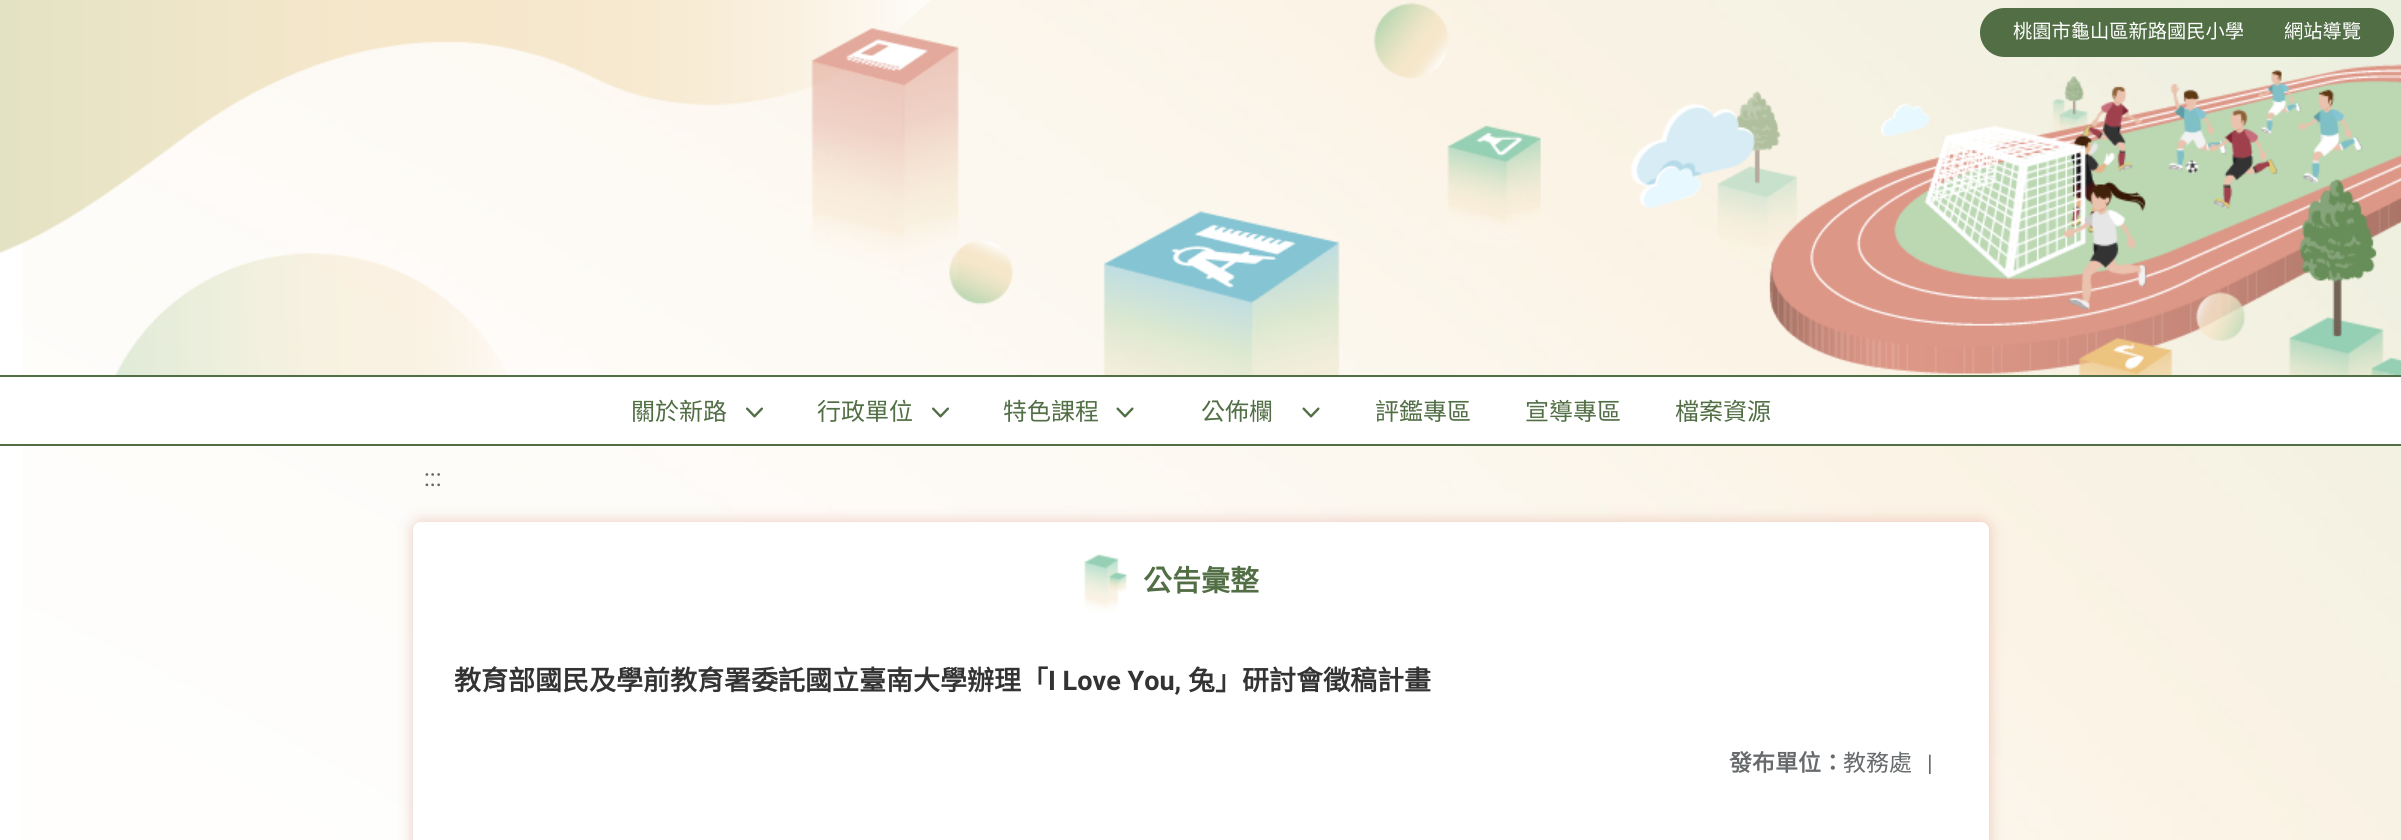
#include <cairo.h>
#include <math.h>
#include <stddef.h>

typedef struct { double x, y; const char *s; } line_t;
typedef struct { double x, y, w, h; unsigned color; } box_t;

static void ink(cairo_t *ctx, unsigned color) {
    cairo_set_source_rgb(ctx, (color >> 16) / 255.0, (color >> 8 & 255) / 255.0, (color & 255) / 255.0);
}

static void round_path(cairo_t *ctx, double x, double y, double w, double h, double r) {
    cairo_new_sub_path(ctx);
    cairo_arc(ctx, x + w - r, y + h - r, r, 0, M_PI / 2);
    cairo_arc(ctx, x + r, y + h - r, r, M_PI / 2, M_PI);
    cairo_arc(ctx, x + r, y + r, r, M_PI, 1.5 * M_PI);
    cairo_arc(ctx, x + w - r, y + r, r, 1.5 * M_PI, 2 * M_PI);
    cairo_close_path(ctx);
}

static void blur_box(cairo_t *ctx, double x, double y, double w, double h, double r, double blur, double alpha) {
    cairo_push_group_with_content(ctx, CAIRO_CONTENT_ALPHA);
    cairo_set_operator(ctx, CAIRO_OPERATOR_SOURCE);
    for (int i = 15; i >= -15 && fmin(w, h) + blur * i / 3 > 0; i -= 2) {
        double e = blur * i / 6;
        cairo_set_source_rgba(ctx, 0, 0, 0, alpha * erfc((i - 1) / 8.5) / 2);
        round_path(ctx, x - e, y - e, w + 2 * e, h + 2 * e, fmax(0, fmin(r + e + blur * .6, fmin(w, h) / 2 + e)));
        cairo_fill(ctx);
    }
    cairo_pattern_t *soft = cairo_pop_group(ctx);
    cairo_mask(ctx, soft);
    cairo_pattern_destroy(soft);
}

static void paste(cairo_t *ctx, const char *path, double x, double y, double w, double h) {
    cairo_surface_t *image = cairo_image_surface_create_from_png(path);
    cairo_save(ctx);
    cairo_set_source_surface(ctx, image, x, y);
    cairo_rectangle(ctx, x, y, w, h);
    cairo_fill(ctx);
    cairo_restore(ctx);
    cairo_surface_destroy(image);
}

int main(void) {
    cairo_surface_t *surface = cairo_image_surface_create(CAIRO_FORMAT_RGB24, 2401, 840);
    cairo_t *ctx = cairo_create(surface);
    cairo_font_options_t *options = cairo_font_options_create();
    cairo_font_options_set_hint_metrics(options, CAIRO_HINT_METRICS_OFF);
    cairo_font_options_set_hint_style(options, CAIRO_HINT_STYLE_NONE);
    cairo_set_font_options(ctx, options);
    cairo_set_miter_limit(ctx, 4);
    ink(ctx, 0xFFFFFF);
    cairo_paint(ctx);
    paste(ctx, "media/1.png", 0, 0, 2401, 840);
    paste(ctx, "media/2.png", 0, 0, 2401, 375);
    ink(ctx, 0x516E45);
    round_path(ctx, 1980, 8, 414, 49, 24.5);
    cairo_fill(ctx);
    cairo_select_font_face(ctx, "Noto Sans CJK TC", CAIRO_FONT_SLANT_NORMAL, CAIRO_FONT_WEIGHT_NORMAL);
    cairo_set_font_size(ctx, 19.25);
    ink(ctx, 0xFFFFFF);
    cairo_move_to(ctx, 2013, 38);
    cairo_show_text(ctx, "桃園市龜山區新路國民小學");
    cairo_move_to(ctx, 2284, 38);
    cairo_show_text(ctx, "網站導覽");
    {
        static const box_t items[] = {
            {23, 377, 2378, 67, 0xFFFFFF},
            {0, 375, 2401, 2, 0x516E45},
            {0, 444, 2401, 2, 0x516E45},
        };
        for (size_t i = 0; i < sizeof items / sizeof *items; i++) {
            ink(ctx, items[i].color);
            cairo_rectangle(ctx, items[i].x, items[i].y, items[i].w, items[i].h);
            cairo_fill(ctx);
        }
    }
    cairo_set_font_size(ctx, 24);
    cairo_move_to(ctx, 631, 420);
    cairo_show_text(ctx, "關於新路");
    paste(ctx, "media/3.png", 746, 407, 17, 11);
    cairo_move_to(ctx, 817, 420);
    cairo_show_text(ctx, "行政單位");
    paste(ctx, "media/3.png", 932, 407, 17, 11);
    cairo_move_to(ctx, 1003, 420);
    cairo_show_text(ctx, "特色課程");
    paste(ctx, "media/4.png", 1116, 407, 18, 11);
    cairo_move_to(ctx, 1201, 420);
    cairo_show_text(ctx, "公佈欄");
    paste(ctx, "media/4.png", 1302, 407, 18, 11);
    {
        static const line_t items[] = {
            {1375, 420, "評鑑專區"},
            {1525, 420, "宣導專區"},
            {1675, 420, "檔案資源"},
        };
        for (size_t i = 0; i < sizeof items / sizeof *items; i++) {
            cairo_move_to(ctx, items[i].x, items[i].y);
            cairo_show_text(ctx, items[i].s);
        }
    }
    cairo_select_font_face(ctx, "Roboto", CAIRO_FONT_SLANT_NORMAL, CAIRO_FONT_WEIGHT_NORMAL);
    ink(ctx, 0x666666);
    cairo_move_to(ctx, 424, 486);
    cairo_show_text(ctx, ":::");
    ink(ctx, 0xDD9787);
    blur_box(ctx, 413, 522, 1576, 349, 8, 7.5, 0.5);
    ink(ctx, 0xFFFFFF);
    round_path(ctx, 413, 522, 1576, 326, 8);
    cairo_fill(ctx);
    paste(ctx, "media/5.png", 1084, 554, 43, 58);
    cairo_select_font_face(ctx, "Noto Sans CJK TC", CAIRO_FONT_SLANT_NORMAL, CAIRO_FONT_WEIGHT_BOLD);
    cairo_set_font_size(ctx, 29);
    ink(ctx, 0x516E45);
    cairo_move_to(ctx, 1143, 591);
    cairo_show_text(ctx, "公告彙整");
    cairo_set_font_size(ctx, 27);
    ink(ctx, 0x333333);
    cairo_move_to(ctx, 454, 690);
    cairo_show_text(ctx, "教育部國民及學前教育署委託國立臺南大學辦理「");
    cairo_select_font_face(ctx, "Roboto", CAIRO_FONT_SLANT_NORMAL, CAIRO_FONT_WEIGHT_BOLD);
    cairo_move_to(ctx, 1048, 690);
    cairo_show_text(ctx, "I Love You,");
    cairo_select_font_face(ctx, "Noto Sans CJK TC", CAIRO_FONT_SLANT_NORMAL, CAIRO_FONT_WEIGHT_BOLD);
    cairo_move_to(ctx, 1188, 690);
    cairo_show_text(ctx, "兔」研討會徵稿計畫");
    cairo_set_font_size(ctx, 23);
    ink(ctx, 0x676A6C);
    cairo_move_to(ctx, 1729, 771);
    cairo_show_text(ctx, "發布單位：");
    cairo_select_font_face(ctx, "Noto Sans CJK TC", CAIRO_FONT_SLANT_NORMAL, CAIRO_FONT_WEIGHT_NORMAL);
    cairo_move_to(ctx, 1843, 771);
    cairo_show_text(ctx, "教務處");
    cairo_select_font_face(ctx, "Roboto", CAIRO_FONT_SLANT_NORMAL, CAIRO_FONT_WEIGHT_NORMAL);
    cairo_move_to(ctx, 1927, 771);
    cairo_show_text(ctx, "|");
    cairo_surface_write_to_png(surface, "image.png");
    cairo_font_options_destroy(options);
    cairo_destroy(ctx);
    cairo_surface_destroy(surface);
    return 0;
}
